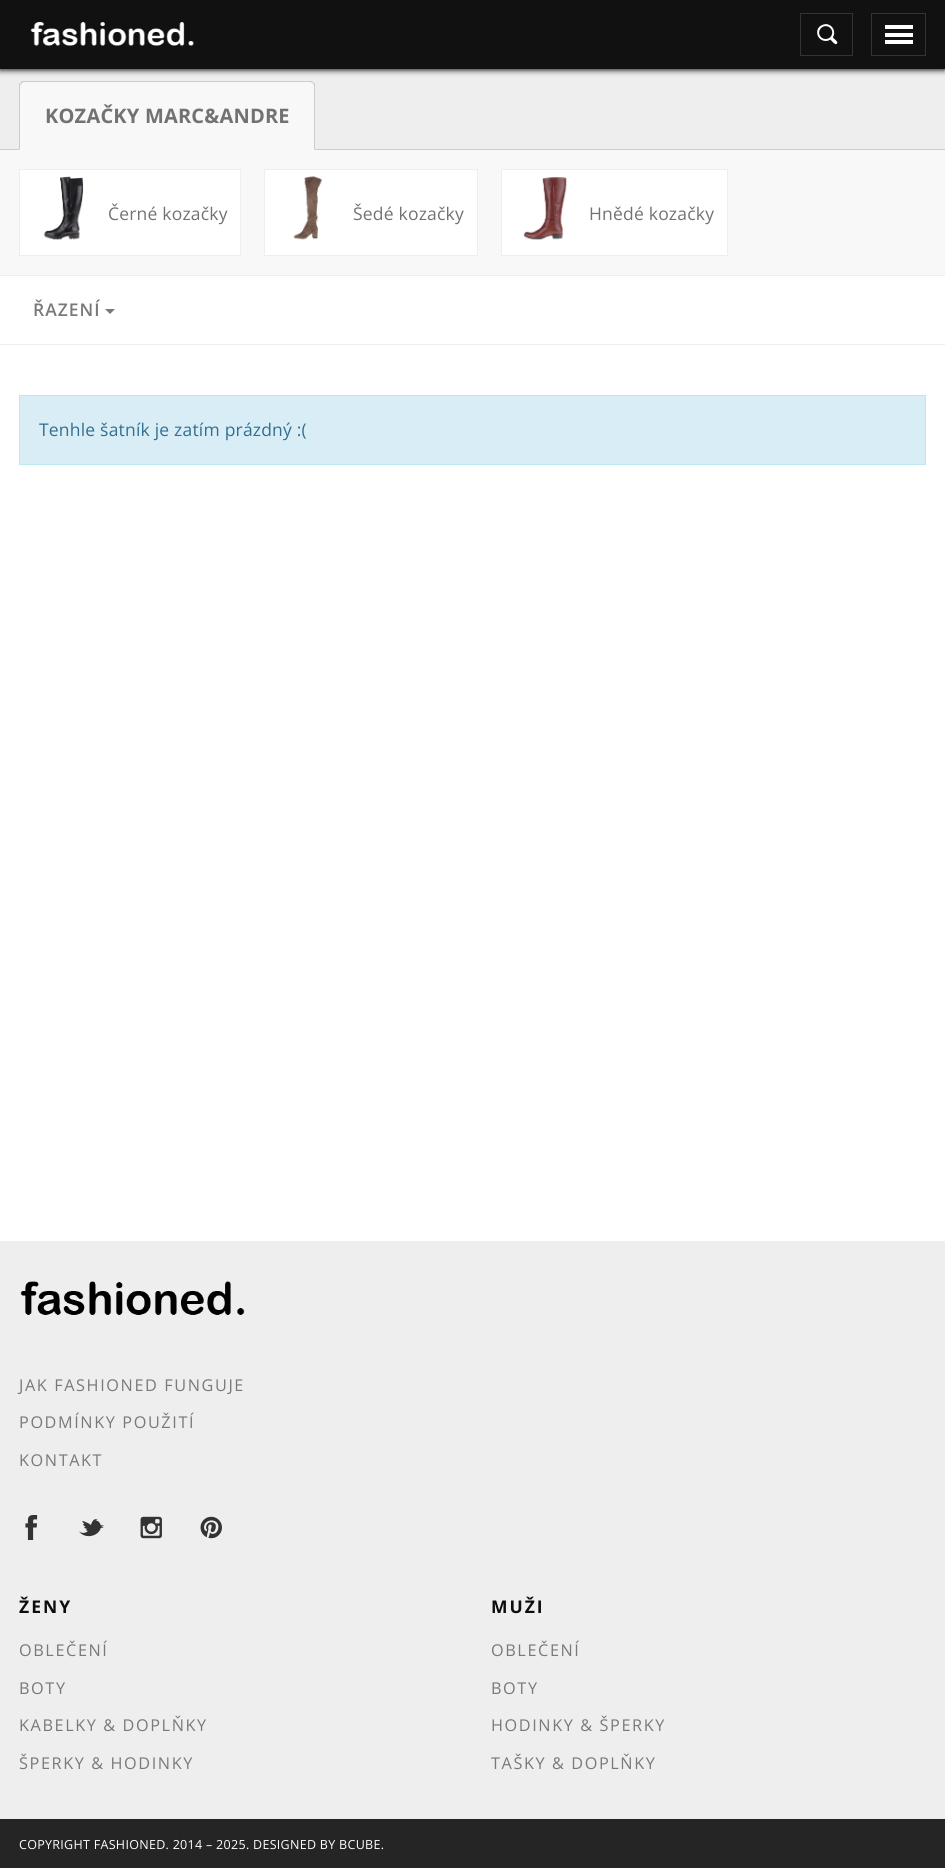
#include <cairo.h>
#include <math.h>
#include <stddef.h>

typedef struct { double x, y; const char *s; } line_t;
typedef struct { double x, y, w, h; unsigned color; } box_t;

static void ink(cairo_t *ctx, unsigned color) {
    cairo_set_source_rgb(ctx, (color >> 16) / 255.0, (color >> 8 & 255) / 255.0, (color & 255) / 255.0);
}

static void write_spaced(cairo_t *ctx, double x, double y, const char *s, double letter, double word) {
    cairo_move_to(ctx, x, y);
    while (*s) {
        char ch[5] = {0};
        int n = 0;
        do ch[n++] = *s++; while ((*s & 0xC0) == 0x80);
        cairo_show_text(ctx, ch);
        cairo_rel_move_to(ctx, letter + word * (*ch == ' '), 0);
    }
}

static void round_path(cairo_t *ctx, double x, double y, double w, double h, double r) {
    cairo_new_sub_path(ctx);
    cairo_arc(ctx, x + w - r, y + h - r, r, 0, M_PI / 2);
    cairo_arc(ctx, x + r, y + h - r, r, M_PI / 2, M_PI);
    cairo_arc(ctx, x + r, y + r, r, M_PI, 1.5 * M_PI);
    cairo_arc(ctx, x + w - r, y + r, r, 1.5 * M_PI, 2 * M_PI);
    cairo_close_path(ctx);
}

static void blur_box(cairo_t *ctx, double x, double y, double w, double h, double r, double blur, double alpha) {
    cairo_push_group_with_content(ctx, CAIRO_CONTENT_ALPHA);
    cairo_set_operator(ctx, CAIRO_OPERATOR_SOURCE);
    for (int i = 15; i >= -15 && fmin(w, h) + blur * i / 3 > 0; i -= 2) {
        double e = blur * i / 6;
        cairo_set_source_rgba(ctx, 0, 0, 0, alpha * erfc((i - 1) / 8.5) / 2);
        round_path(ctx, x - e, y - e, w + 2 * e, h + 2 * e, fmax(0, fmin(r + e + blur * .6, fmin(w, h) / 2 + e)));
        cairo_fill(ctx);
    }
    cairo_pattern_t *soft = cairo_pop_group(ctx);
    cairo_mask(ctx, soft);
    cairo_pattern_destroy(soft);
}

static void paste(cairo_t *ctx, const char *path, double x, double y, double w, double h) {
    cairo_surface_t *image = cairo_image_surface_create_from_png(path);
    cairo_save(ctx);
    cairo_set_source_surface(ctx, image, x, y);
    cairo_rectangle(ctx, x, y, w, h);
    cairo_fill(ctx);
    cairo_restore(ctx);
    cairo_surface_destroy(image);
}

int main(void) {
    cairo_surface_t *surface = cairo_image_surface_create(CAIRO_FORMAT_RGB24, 945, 1868);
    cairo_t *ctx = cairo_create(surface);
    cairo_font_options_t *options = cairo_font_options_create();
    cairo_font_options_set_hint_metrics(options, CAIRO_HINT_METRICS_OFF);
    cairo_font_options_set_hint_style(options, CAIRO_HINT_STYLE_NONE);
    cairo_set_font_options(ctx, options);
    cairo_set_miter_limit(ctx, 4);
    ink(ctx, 0xFFFFFF);
    cairo_paint(ctx);
    ink(ctx, 0xEEEEEE);
    cairo_rectangle(ctx, 0, 69, 945, 80);
    cairo_fill(ctx);
    ink(ctx, 0x111111);
    blur_box(ctx, 0, 1, 945, 69, 0, 3, 1);
    ink(ctx, 0x111111);
    cairo_rectangle(ctx, 0, 0, 945, 69);
    cairo_fill(ctx);
    paste(ctx, "media/1.png", 30, 22, 164, 24);
    cairo_rectangle(ctx, 800.5, 13.5, 52, 42);
    ink(ctx, 0x333333);
    cairo_set_line_width(ctx, 1);
    cairo_stroke(ctx);
    paste(ctx, "media/2.png", 817, 24, 21, 21);
    cairo_rectangle(ctx, 871.5, 13.5, 54, 42);
    cairo_stroke(ctx);
    {
        static const box_t items[] = {
            {885, 25, 28, 4, 0xFFFFFF},
            {885, 33, 28, 4, 0xFFFFFF},
            {885, 40, 28, 4, 0xFFFFFF},
            {0, 149, 945, 1, 0xCCCCCC},
        };
        for (size_t i = 0; i < sizeof items / sizeof *items; i++) {
            ink(ctx, items[i].color);
            cairo_rectangle(ctx, items[i].x, items[i].y, items[i].w, items[i].h);
            cairo_fill(ctx);
        }
    }
    ink(ctx, 0xF8F8F8);
    cairo_new_path(ctx);
    cairo_move_to(ctx, 24, 81);
    cairo_line_to(ctx, 310, 81);
    cairo_curve_to(ctx, 313, 81, 315, 83, 315, 86);
    cairo_line_to(ctx, 315, 150);
    cairo_line_to(ctx, 19, 150);
    cairo_line_to(ctx, 19, 86);
    cairo_curve_to(ctx, 19, 83, 21, 81, 24, 81);
    cairo_close_path(ctx);
    cairo_fill(ctx);
    ink(ctx, 0xCCCCCC);
    cairo_new_path(ctx);
    cairo_move_to(ctx, 24, 82);
    cairo_curve_to(ctx, 23, 82, 22, 83, 21, 84);
    cairo_line_to(ctx, 20, 83);
    cairo_line_to(ctx, 22, 81);
    cairo_line_to(ctx, 312, 81);
    cairo_line_to(ctx, 314, 83);
    cairo_line_to(ctx, 313, 83);
    cairo_line_to(ctx, 310, 82);
    cairo_close_path(ctx);
    cairo_fill(ctx);
    cairo_new_path(ctx);
    cairo_move_to(ctx, 315, 150);
    cairo_line_to(ctx, 315, 86);
    cairo_curve_to(ctx, 315, 85, 315, 83, 314, 83);
    cairo_line_to(ctx, 313, 83);
    cairo_line_to(ctx, 314, 86);
    cairo_line_to(ctx, 314, 149);
    cairo_close_path(ctx);
    cairo_fill(ctx);
    cairo_new_path(ctx);
    cairo_move_to(ctx, 19, 150);
    cairo_line_to(ctx, 19, 86);
    cairo_curve_to(ctx, 19, 85, 19, 83, 20, 83);
    cairo_line_to(ctx, 21, 84);
    cairo_line_to(ctx, 20, 86);
    cairo_line_to(ctx, 20, 149);
    cairo_close_path(ctx);
    cairo_fill(ctx);
    cairo_select_font_face(ctx, "Open Sans", CAIRO_FONT_SLANT_NORMAL, CAIRO_FONT_WEIGHT_BOLD);
    cairo_set_font_size(ctx, 20);
    ink(ctx, 0x727272);
    write_spaced(ctx, 45, 123, "KOZAČKY MARC&ANDRE", 0.2, 0);
    ink(ctx, 0xF8F8F8);
    cairo_rectangle(ctx, 0, 150, 945, 125);
    cairo_fill(ctx);
    ink(ctx, 0xEEEEEE);
    cairo_rectangle(ctx, 0, 275, 945, 1);
    cairo_fill(ctx);
    ink(ctx, 0xFFFFFF);
    cairo_rectangle(ctx, 19.5, 169.5, 221, 86);
    cairo_fill_preserve(ctx);
    ink(ctx, 0xEEEEEE);
    cairo_stroke(ctx);
    paste(ctx, "media/3.png", 43, 176, 41, 64);
    cairo_select_font_face(ctx, "Open Sans", CAIRO_FONT_SLANT_NORMAL, CAIRO_FONT_WEIGHT_NORMAL);
    cairo_set_font_size(ctx, 17.5);
    ink(ctx, 0x727272);
    write_spaced(ctx, 108, 220, "Černé kozačky", 0.2, 0);
    ink(ctx, 0xFFFFFF);
    cairo_rectangle(ctx, 264.5, 169.5, 213, 86);
    cairo_fill_preserve(ctx);
    ink(ctx, 0xEEEEEE);
    cairo_stroke(ctx);
    paste(ctx, "media/4.png", 293, 176, 29, 64);
    ink(ctx, 0x727272);
    write_spaced(ctx, 353, 220, "Šedé kozačky", 0.2, 0);
    ink(ctx, 0xFFFFFF);
    cairo_rectangle(ctx, 501.5, 169.5, 226, 86);
    cairo_fill_preserve(ctx);
    ink(ctx, 0xEEEEEE);
    cairo_stroke(ctx);
    paste(ctx, "media/5.png", 523, 177, 44, 63);
    ink(ctx, 0x727272);
    write_spaced(ctx, 589, 220, "Hnědé kozačky", 0.2, 0);
    ink(ctx, 0xEEEEEE);
    cairo_rectangle(ctx, 0, 344, 945, 1);
    cairo_fill(ctx);
    cairo_select_font_face(ctx, "Open Sans SemiBold", CAIRO_FONT_SLANT_NORMAL, CAIRO_FONT_WEIGHT_NORMAL);
    ink(ctx, 0x797979);
    write_spaced(ctx, 33, 316, "ŘAZENÍ", 1, 0);
    cairo_new_path(ctx);
    cairo_move_to(ctx, 105, 309);
    cairo_line_to(ctx, 115, 309);
    cairo_line_to(ctx, 110, 314);
    cairo_close_path(ctx);
    cairo_fill(ctx);
    ink(ctx, 0xD9EDF7);
    cairo_rectangle(ctx, 19.5, 395.5, 906, 69);
    cairo_fill_preserve(ctx);
    ink(ctx, 0xBCE8F1);
    cairo_stroke(ctx);
    cairo_select_font_face(ctx, "Open Sans", CAIRO_FONT_SLANT_NORMAL, CAIRO_FONT_WEIGHT_NORMAL);
    ink(ctx, 0x31708F);
    write_spaced(ctx, 39, 436, "Tenhle šatník je zatím prázdný :(", 0.2, 0);
    ink(ctx, 0xEEEEEE);
    cairo_rectangle(ctx, 0, 1241, 945, 578);
    cairo_fill(ctx);
    paste(ctx, "media/6.png", 20, 1281, 225, 34);
    cairo_set_font_size(ctx, 16.25);
    ink(ctx, 0x797979);
    {
        static const line_t items[] = {
            {19, 1391, "JAK FASHIONED FUNGUJE"},
            {19, 1428, "PODMÍNKY POUŽITÍ"},
            {19, 1466, "KONTAKT"},
        };
        for (size_t i = 0; i < sizeof items / sizeof *items; i++) {
            write_spaced(ctx, items[i].x, items[i].y, items[i].s, 1.6, 0);
        }
    }
    paste(ctx, "media/7.png", 25, 1515, 13, 25);
    paste(ctx, "media/8.png", 79, 1519, 25, 18);
    paste(ctx, "media/9.png", 140, 1516, 22, 23);
    paste(ctx, "media/10.png", 200, 1516, 22, 23);
    cairo_select_font_face(ctx, "Open Sans", CAIRO_FONT_SLANT_NORMAL, CAIRO_FONT_WEIGHT_BOLD);
    cairo_set_font_size(ctx, 17.5);
    ink(ctx, 0x0C0D0D);
    write_spaced(ctx, 19, 1613, "ŽENY", 2, 0);
    cairo_select_font_face(ctx, "Open Sans", CAIRO_FONT_SLANT_NORMAL, CAIRO_FONT_WEIGHT_NORMAL);
    cairo_set_font_size(ctx, 16.25);
    ink(ctx, 0x797979);
    {
        static const line_t items[] = {
            {19, 1656, "OBLEČENÍ"},
            {19, 1694, "BOTY"},
            {19, 1731, "KABELKY & DOPLŇKY"},
            {19, 1769, "ŠPERKY & HODINKY"},
        };
        for (size_t i = 0; i < sizeof items / sizeof *items; i++) {
            write_spaced(ctx, items[i].x, items[i].y, items[i].s, 1.6, 0);
        }
    }
    cairo_select_font_face(ctx, "Open Sans", CAIRO_FONT_SLANT_NORMAL, CAIRO_FONT_WEIGHT_BOLD);
    cairo_set_font_size(ctx, 17.5);
    ink(ctx, 0x0C0D0D);
    write_spaced(ctx, 491, 1613, "MUŽI", 2, 0);
    cairo_select_font_face(ctx, "Open Sans", CAIRO_FONT_SLANT_NORMAL, CAIRO_FONT_WEIGHT_NORMAL);
    cairo_set_font_size(ctx, 16.25);
    ink(ctx, 0x797979);
    {
        static const line_t items[] = {
            {491, 1656, "OBLEČENÍ"},
            {491, 1694, "BOTY"},
            {491, 1731, "HODINKY & ŠPERKY"},
            {491, 1769, "TAŠKY & DOPLŇKY"},
        };
        for (size_t i = 0; i < sizeof items / sizeof *items; i++) {
            write_spaced(ctx, items[i].x, items[i].y, items[i].s, 1.6, 0);
        }
    }
    ink(ctx, 0x252525);
    cairo_rectangle(ctx, 0, 1819, 945, 49);
    cairo_fill(ctx);
    cairo_set_font_size(ctx, 12.5);
    ink(ctx, 0xFFFFFF);
    write_spaced(ctx, 19, 1849, "COPYRIGHT FASHIONED. 2014 – 2025. DESIGNED BY BCUBE.", 0.3, 0);
    cairo_surface_write_to_png(surface, "image.png");
    cairo_font_options_destroy(options);
    cairo_destroy(ctx);
    cairo_surface_destroy(surface);
    return 0;
}
